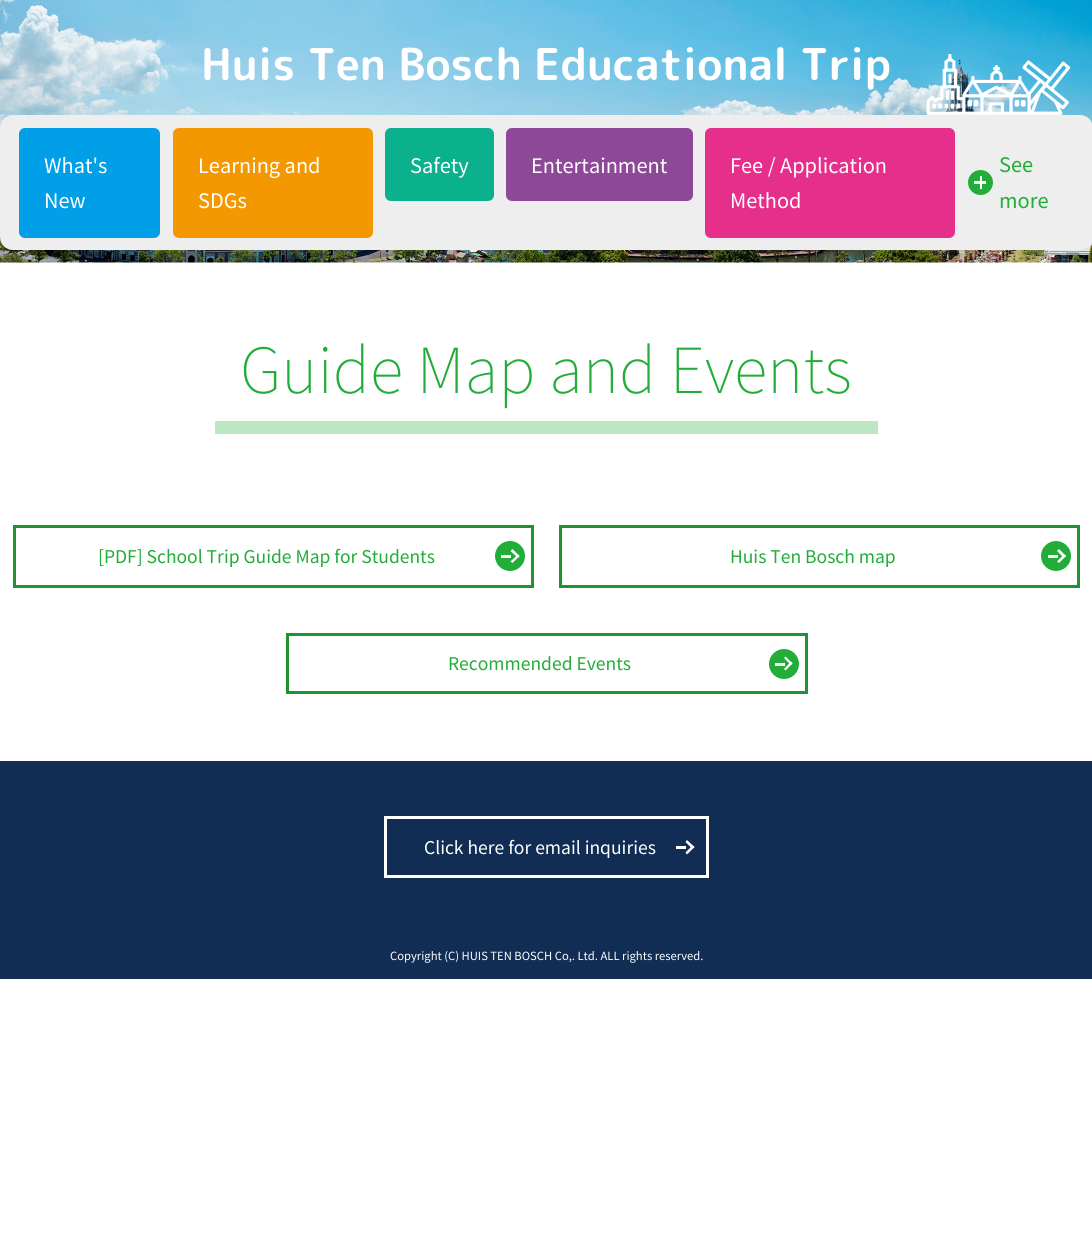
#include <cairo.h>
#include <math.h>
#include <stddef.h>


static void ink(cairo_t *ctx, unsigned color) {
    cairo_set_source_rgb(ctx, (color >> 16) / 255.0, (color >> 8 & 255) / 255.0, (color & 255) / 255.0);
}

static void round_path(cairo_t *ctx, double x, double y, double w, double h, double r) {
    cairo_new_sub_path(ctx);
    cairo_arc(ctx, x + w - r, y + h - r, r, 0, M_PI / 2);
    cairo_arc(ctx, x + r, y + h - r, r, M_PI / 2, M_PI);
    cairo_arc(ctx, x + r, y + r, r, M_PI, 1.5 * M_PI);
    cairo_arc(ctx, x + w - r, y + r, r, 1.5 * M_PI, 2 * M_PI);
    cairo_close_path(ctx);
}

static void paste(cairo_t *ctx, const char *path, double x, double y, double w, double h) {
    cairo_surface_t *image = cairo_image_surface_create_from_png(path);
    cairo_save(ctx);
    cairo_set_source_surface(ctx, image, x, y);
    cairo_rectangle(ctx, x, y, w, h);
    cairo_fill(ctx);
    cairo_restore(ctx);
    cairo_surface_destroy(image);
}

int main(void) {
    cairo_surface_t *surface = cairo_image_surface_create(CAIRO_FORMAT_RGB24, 1092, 1260);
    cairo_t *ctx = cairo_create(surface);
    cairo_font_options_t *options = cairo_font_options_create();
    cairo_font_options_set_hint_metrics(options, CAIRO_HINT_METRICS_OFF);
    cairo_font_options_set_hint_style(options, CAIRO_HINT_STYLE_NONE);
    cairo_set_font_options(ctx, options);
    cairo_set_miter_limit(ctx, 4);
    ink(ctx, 0xFFFFFF);
    cairo_paint(ctx);
    paste(ctx, "media/1.png", 0, 0, 1092, 263);
    cairo_select_font_face(ctx, "Rounded Mplus 1c Bold", CAIRO_FONT_SLANT_NORMAL, CAIRO_FONT_WEIGHT_BOLD);
    cairo_set_font_size(ctx, 43.75);
    ink(ctx, 0xFFFFFF);
    cairo_move_to(ctx, 201, 80);
    cairo_show_text(ctx, "Huis Ten Bosch Educational Trip");
    ink(ctx, 0xEEEEEE);
    round_path(ctx, 0, 115, 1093, 135, 13);
    cairo_fill(ctx);
    paste(ctx, "media/2.png", 926, 54, 145, 61);
    ink(ctx, 0x009FE8);
    round_path(ctx, 19, 128, 141, 110, 6);
    cairo_fill(ctx);
    cairo_select_font_face(ctx, "Noto Sans JP", CAIRO_FONT_SLANT_NORMAL, CAIRO_FONT_WEIGHT_NORMAL);
    cairo_set_font_size(ctx, 20);
    ink(ctx, 0xFFFFFF);
    cairo_move_to(ctx, 44, 173);
    cairo_show_text(ctx, "What's");
    cairo_move_to(ctx, 44, 208);
    cairo_show_text(ctx, "New");
    ink(ctx, 0xF39800);
    round_path(ctx, 173, 128, 200, 110, 6);
    cairo_fill(ctx);
    ink(ctx, 0xFFFFFF);
    cairo_move_to(ctx, 198, 173);
    cairo_show_text(ctx, "Learning and");
    cairo_move_to(ctx, 198, 208);
    cairo_show_text(ctx, "SDGs");
    ink(ctx, 0x0BB18D);
    round_path(ctx, 385, 128, 109, 73, 6);
    cairo_fill(ctx);
    ink(ctx, 0xFFFFFF);
    cairo_move_to(ctx, 410, 173);
    cairo_show_text(ctx, "Safety");
    ink(ctx, 0x8E4898);
    round_path(ctx, 506, 128, 187, 73, 6);
    cairo_fill(ctx);
    ink(ctx, 0xFFFFFF);
    cairo_move_to(ctx, 531, 173);
    cairo_show_text(ctx, "Entertainment");
    ink(ctx, 0xE62E8B);
    round_path(ctx, 705, 128, 250, 110, 6);
    cairo_fill(ctx);
    ink(ctx, 0xFFFFFF);
    cairo_move_to(ctx, 730, 173);
    cairo_show_text(ctx, "Fee / Application");
    cairo_move_to(ctx, 730, 208);
    cairo_show_text(ctx, "Method");
    ink(ctx, 0x22AC38);
    cairo_move_to(ctx, 999, 172);
    cairo_show_text(ctx, "See");
    cairo_new_path(ctx);
    cairo_arc(ctx, 980.5, 182.5, 12.5, 0, 2 * M_PI);
    cairo_fill(ctx);
    ink(ctx, 0xFFFFFF);
    cairo_rectangle(ctx, 974, 181, 12, 3);
    cairo_fill(ctx);
    cairo_rectangle(ctx, 980, 176, 2, 13);
    cairo_fill(ctx);
    ink(ctx, 0x22AC38);
    cairo_move_to(ctx, 999, 208);
    cairo_show_text(ctx, "more");
    cairo_select_font_face(ctx, "Noto Sans JP Thin", CAIRO_FONT_SLANT_NORMAL, CAIRO_FONT_WEIGHT_NORMAL);
    cairo_set_font_size(ctx, 62.5);
    cairo_move_to(ctx, 240, 393);
    cairo_show_text(ctx, "Guide Map and Events");
    ink(ctx, 0xBDE6C3);
    cairo_rectangle(ctx, 215, 421, 663, 13);
    cairo_fill(ctx);
    cairo_rectangle(ctx, 14.5, 526.5, 518, 60);
    ink(ctx, 0x1F9231);
    cairo_set_line_width(ctx, 3);
    cairo_stroke(ctx);
    cairo_select_font_face(ctx, "Noto Sans JP", CAIRO_FONT_SLANT_NORMAL, CAIRO_FONT_WEIGHT_NORMAL);
    cairo_set_font_size(ctx, 17.5);
    ink(ctx, 0x22AC38);
    cairo_move_to(ctx, 98, 563);
    cairo_show_text(ctx, "[PDF] School Trip Guide Map for Students");
    cairo_new_path(ctx);
    cairo_arc(ctx, 510, 556, 15, 0, 2 * M_PI);
    cairo_fill(ctx);
    ink(ctx, 0xFFFFFF);
    cairo_rectangle(ctx, 501, 555, 10, 3);
    cairo_fill(ctx);
    cairo_new_path(ctx);
    cairo_move_to(ctx, 512.5, 549);
    cairo_line_to(ctx, 519.5, 556);
    cairo_line_to(ctx, 518, 558);
    cairo_line_to(ctx, 510.5, 551);
    cairo_close_path(ctx);
    cairo_fill(ctx);
    cairo_new_path(ctx);
    cairo_move_to(ctx, 518, 554.5);
    cairo_line_to(ctx, 519.5, 556);
    cairo_line_to(ctx, 512.5, 563);
    cairo_line_to(ctx, 510.5, 561.5);
    cairo_close_path(ctx);
    cairo_fill(ctx);
    cairo_rectangle(ctx, 560.5, 526.5, 518, 60);
    ink(ctx, 0x1F9231);
    cairo_stroke(ctx);
    ink(ctx, 0x22AC38);
    cairo_move_to(ctx, 730, 563);
    cairo_show_text(ctx, "Huis Ten Bosch map");
    cairo_new_path(ctx);
    cairo_arc(ctx, 1056, 556, 15, 0, 2 * M_PI);
    cairo_fill(ctx);
    ink(ctx, 0xFFFFFF);
    cairo_rectangle(ctx, 1048, 555, 10, 3);
    cairo_fill(ctx);
    cairo_new_path(ctx);
    cairo_move_to(ctx, 1059, 549);
    cairo_line_to(ctx, 1066, 556);
    cairo_line_to(ctx, 1064, 558);
    cairo_line_to(ctx, 1057, 551);
    cairo_close_path(ctx);
    cairo_fill(ctx);
    cairo_new_path(ctx);
    cairo_move_to(ctx, 1064, 554.5);
    cairo_line_to(ctx, 1066, 556);
    cairo_line_to(ctx, 1059, 563);
    cairo_line_to(ctx, 1057, 561.5);
    cairo_close_path(ctx);
    cairo_fill(ctx);
    cairo_rectangle(ctx, 287.5, 634.5, 519, 58);
    ink(ctx, 0x1F9231);
    cairo_stroke(ctx);
    ink(ctx, 0x22AC38);
    cairo_move_to(ctx, 448, 670);
    cairo_show_text(ctx, "Recommended Events");
    cairo_new_path(ctx);
    cairo_arc(ctx, 784, 664, 15, 0, 2 * M_PI);
    cairo_fill(ctx);
    ink(ctx, 0xFFFFFF);
    cairo_rectangle(ctx, 775, 663, 10, 3);
    cairo_fill(ctx);
    cairo_new_path(ctx);
    cairo_move_to(ctx, 785.5, 656.5);
    cairo_line_to(ctx, 792.5, 663.5);
    cairo_line_to(ctx, 791, 665);
    cairo_line_to(ctx, 784, 658);
    cairo_close_path(ctx);
    cairo_fill(ctx);
    cairo_new_path(ctx);
    cairo_move_to(ctx, 791, 661.5);
    cairo_line_to(ctx, 792.5, 663.5);
    cairo_line_to(ctx, 785.5, 670.5);
    cairo_line_to(ctx, 784, 669);
    cairo_close_path(ctx);
    cairo_fill(ctx);
    ink(ctx, 0x112D54);
    cairo_rectangle(ctx, 0, 761, 1092, 218);
    cairo_fill(ctx);
    cairo_rectangle(ctx, 385.5, 817.5, 322, 59);
    ink(ctx, 0xFFFFFF);
    cairo_stroke(ctx);
    cairo_move_to(ctx, 424, 854);
    cairo_show_text(ctx, "Click here for email inquiries");
    cairo_rectangle(ctx, 676, 846, 10, 3);
    cairo_fill(ctx);
    cairo_new_path(ctx);
    cairo_move_to(ctx, 687, 840);
    cairo_line_to(ctx, 694.5, 847);
    cairo_line_to(ctx, 692.5, 849);
    cairo_line_to(ctx, 685.5, 842);
    cairo_close_path(ctx);
    cairo_fill(ctx);
    cairo_new_path(ctx);
    cairo_move_to(ctx, 692.5, 845.5);
    cairo_line_to(ctx, 694.5, 847);
    cairo_line_to(ctx, 687, 854.5);
    cairo_line_to(ctx, 685.5, 852.5);
    cairo_close_path(ctx);
    cairo_fill(ctx);
    cairo_set_font_size(ctx, 11.25);
    cairo_move_to(ctx, 390, 960);
    cairo_show_text(ctx, "Copyright (C) HUIS TEN BOSCH Co,. Ltd. ALL rights reserved.");
    cairo_surface_write_to_png(surface, "image.png");
    cairo_font_options_destroy(options);
    cairo_destroy(ctx);
    cairo_surface_destroy(surface);
    return 0;
}
